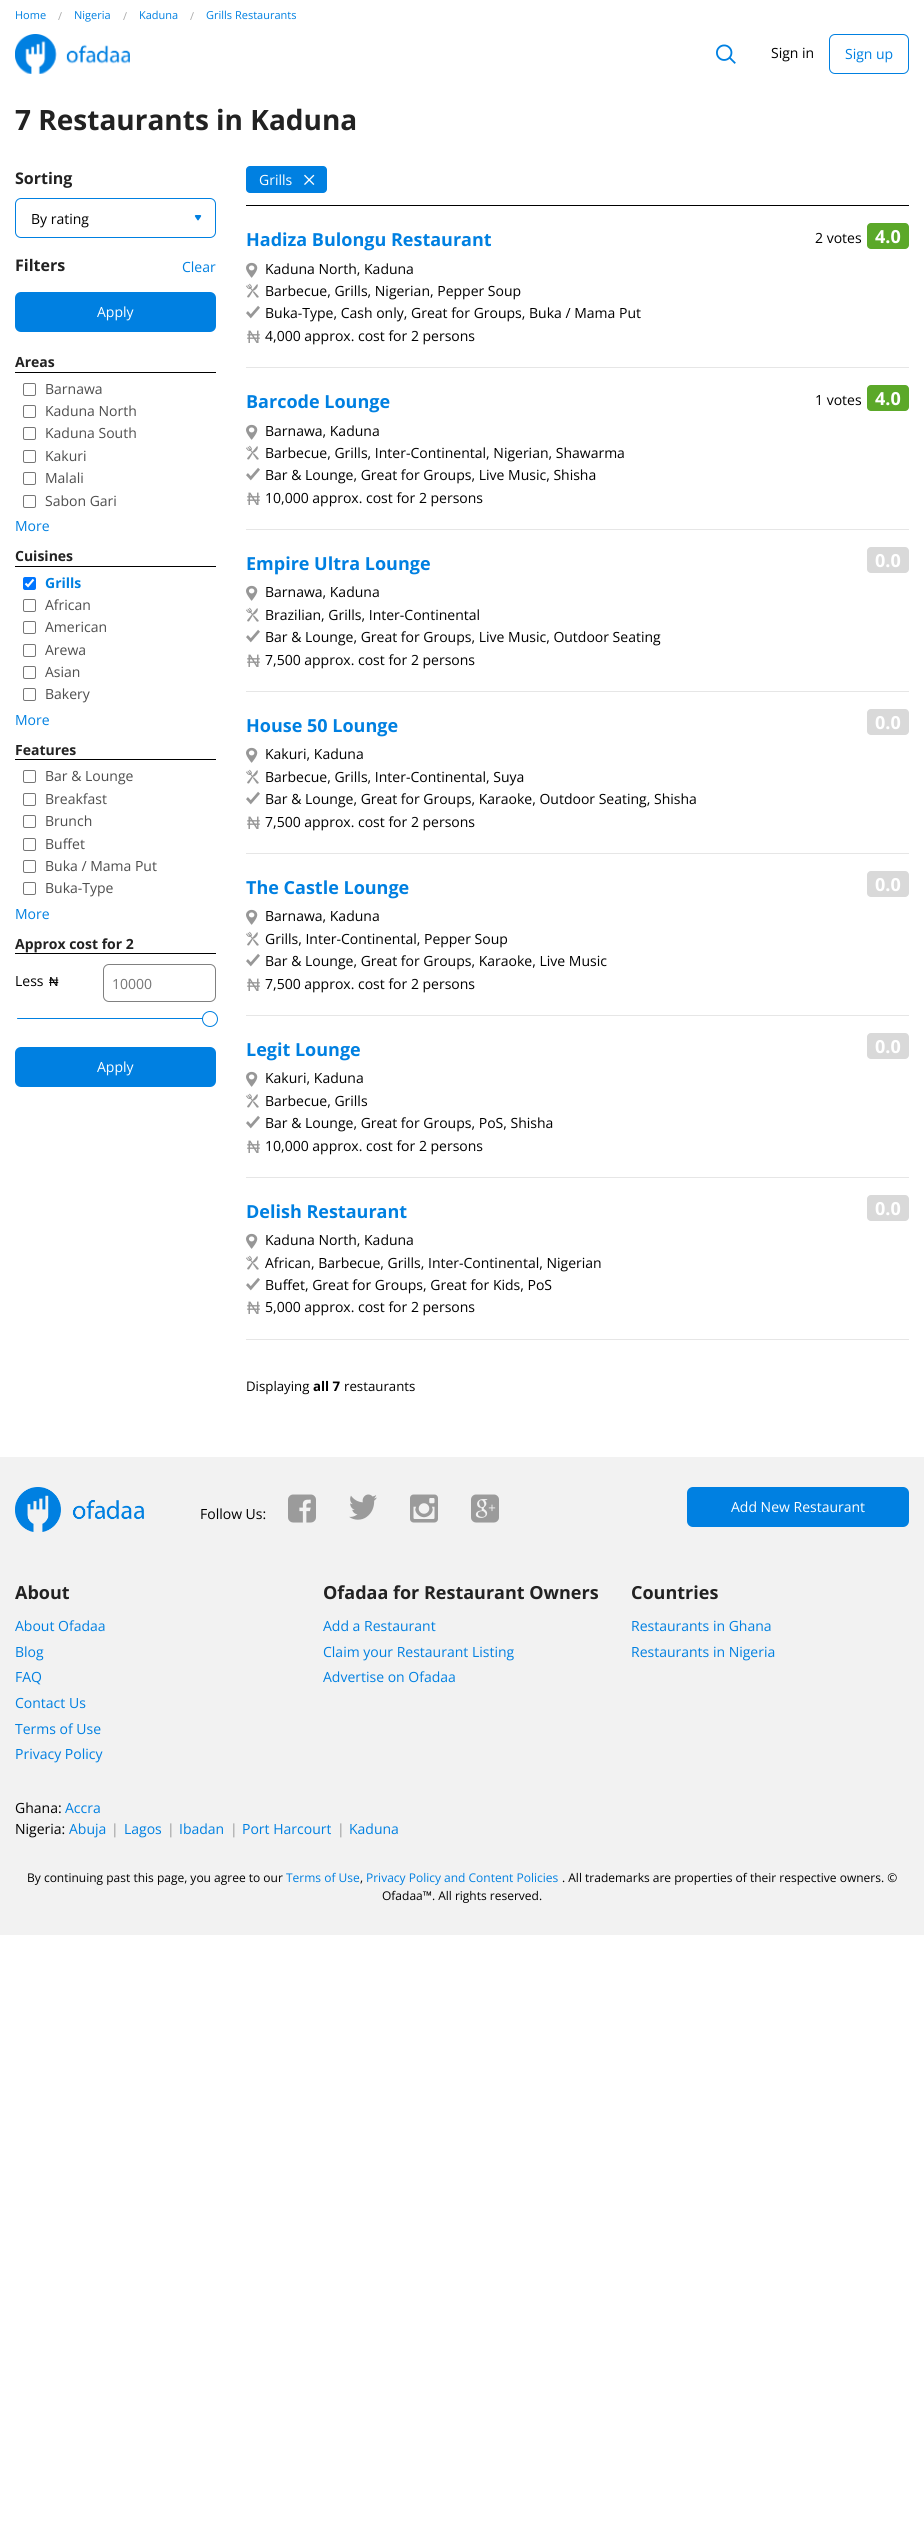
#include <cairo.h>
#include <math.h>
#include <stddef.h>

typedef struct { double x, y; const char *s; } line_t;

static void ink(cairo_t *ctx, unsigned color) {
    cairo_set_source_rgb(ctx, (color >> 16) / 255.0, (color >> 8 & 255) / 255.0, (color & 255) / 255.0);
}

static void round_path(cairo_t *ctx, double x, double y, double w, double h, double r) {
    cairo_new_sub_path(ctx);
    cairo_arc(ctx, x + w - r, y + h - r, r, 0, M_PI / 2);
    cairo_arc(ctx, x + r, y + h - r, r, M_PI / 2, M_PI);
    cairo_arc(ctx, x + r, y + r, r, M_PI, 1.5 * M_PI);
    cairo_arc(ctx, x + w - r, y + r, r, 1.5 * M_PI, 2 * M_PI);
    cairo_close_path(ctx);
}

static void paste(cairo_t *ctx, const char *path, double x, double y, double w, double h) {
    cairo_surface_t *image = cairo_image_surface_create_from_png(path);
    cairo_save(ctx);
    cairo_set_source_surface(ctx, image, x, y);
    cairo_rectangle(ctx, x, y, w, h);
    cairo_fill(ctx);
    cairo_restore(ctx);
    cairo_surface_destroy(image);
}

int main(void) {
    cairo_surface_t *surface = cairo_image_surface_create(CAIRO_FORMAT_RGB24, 924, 2534);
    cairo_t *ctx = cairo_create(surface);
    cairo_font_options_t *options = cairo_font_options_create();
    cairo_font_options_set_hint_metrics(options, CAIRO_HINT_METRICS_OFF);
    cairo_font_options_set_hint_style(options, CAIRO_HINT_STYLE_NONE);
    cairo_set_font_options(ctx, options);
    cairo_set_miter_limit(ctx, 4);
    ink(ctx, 0xFFFFFF);
    cairo_paint(ctx);
    cairo_select_font_face(ctx, "Open Sans", CAIRO_FONT_SLANT_NORMAL, CAIRO_FONT_WEIGHT_NORMAL);
    cairo_set_font_size(ctx, 11);
    ink(ctx, 0x0080E1);
    cairo_move_to(ctx, 15, 19);
    cairo_show_text(ctx, "Home");
    ink(ctx, 0xAAAAAA);
    cairo_move_to(ctx, 58, 20);
    cairo_show_text(ctx, "/");
    ink(ctx, 0x0080E1);
    cairo_move_to(ctx, 74, 19);
    cairo_show_text(ctx, "Nigeria");
    ink(ctx, 0xAAAAAA);
    cairo_move_to(ctx, 123, 20);
    cairo_show_text(ctx, "/");
    ink(ctx, 0x0080E1);
    cairo_move_to(ctx, 139, 19);
    cairo_show_text(ctx, "Kaduna");
    ink(ctx, 0xAAAAAA);
    cairo_move_to(ctx, 190, 20);
    cairo_show_text(ctx, "/");
    ink(ctx, 0x0080E1);
    cairo_move_to(ctx, 206, 19);
    cairo_show_text(ctx, "Grills Restaurants");
    paste(ctx, "media/1.png", 15, 34, 115, 40);
    paste(ctx, "media/2.png", 716, 44, 20, 20);
    cairo_set_font_size(ctx, 14);
    ink(ctx, 0x000000);
    cairo_move_to(ctx, 771, 58);
    cairo_show_text(ctx, "Sign in");
    round_path(ctx, 829.5, 34.5, 79, 39, 5.5);
    ink(ctx, 0x0080E1);
    cairo_set_line_width(ctx, 1);
    cairo_stroke(ctx);
    cairo_move_to(ctx, 845, 59);
    cairo_show_text(ctx, "Sign up");
    cairo_select_font_face(ctx, "Open Sans", CAIRO_FONT_SLANT_NORMAL, CAIRO_FONT_WEIGHT_BOLD);
    cairo_set_font_size(ctx, 28);
    ink(ctx, 0x222222);
    cairo_move_to(ctx, 15, 130);
    cairo_show_text(ctx, "7 Restaurants in Kaduna");
    cairo_set_font_size(ctx, 16);
    cairo_move_to(ctx, 15, 184);
    cairo_show_text(ctx, "Sorting");
    paste(ctx, "media/3.png", 194, 215, 8, 6);
    round_path(ctx, 15.5, 198.5, 200, 39, 5.5);
    ink(ctx, 0x0080E1);
    cairo_stroke(ctx);
    cairo_select_font_face(ctx, "Open Sans", CAIRO_FONT_SLANT_NORMAL, CAIRO_FONT_WEIGHT_NORMAL);
    cairo_set_font_size(ctx, 14);
    ink(ctx, 0x000000);
    cairo_move_to(ctx, 31, 224);
    cairo_show_text(ctx, "By rating");
    cairo_select_font_face(ctx, "Open Sans", CAIRO_FONT_SLANT_NORMAL, CAIRO_FONT_WEIGHT_BOLD);
    cairo_set_font_size(ctx, 16);
    ink(ctx, 0x222222);
    cairo_move_to(ctx, 15, 271);
    cairo_show_text(ctx, "Filters");
    cairo_select_font_face(ctx, "Open Sans", CAIRO_FONT_SLANT_NORMAL, CAIRO_FONT_WEIGHT_NORMAL);
    cairo_set_font_size(ctx, 14);
    ink(ctx, 0x0080E1);
    cairo_move_to(ctx, 182, 272);
    cairo_show_text(ctx, "Clear");
    round_path(ctx, 15, 292, 201, 40, 6);
    cairo_fill(ctx);
    ink(ctx, 0xFFFFFF);
    cairo_move_to(ctx, 97, 317);
    cairo_show_text(ctx, "Apply");
    ink(ctx, 0x000000);
    cairo_rectangle(ctx, 15, 372, 201, 1);
    cairo_fill(ctx);
    cairo_select_font_face(ctx, "Open Sans", CAIRO_FONT_SLANT_NORMAL, CAIRO_FONT_WEIGHT_BOLD);
    ink(ctx, 0x222222);
    cairo_move_to(ctx, 15, 367);
    cairo_show_text(ctx, "Areas");
    round_path(ctx, 23.5, 383.5, 12, 12, 1.5);
    ink(ctx, 0x767676);
    cairo_stroke(ctx);
    cairo_select_font_face(ctx, "Open Sans", CAIRO_FONT_SLANT_NORMAL, CAIRO_FONT_WEIGHT_NORMAL);
    ink(ctx, 0x4D4D4D);
    cairo_move_to(ctx, 45, 394);
    cairo_show_text(ctx, "Barnawa");
    round_path(ctx, 23.5, 405.5, 12, 12, 1.5);
    ink(ctx, 0x767676);
    cairo_stroke(ctx);
    ink(ctx, 0x4D4D4D);
    cairo_move_to(ctx, 45, 416);
    cairo_show_text(ctx, "Kaduna North");
    round_path(ctx, 23.5, 427.5, 12, 12, 1.5);
    ink(ctx, 0x767676);
    cairo_stroke(ctx);
    ink(ctx, 0x4D4D4D);
    cairo_move_to(ctx, 45, 438);
    cairo_show_text(ctx, "Kaduna South");
    round_path(ctx, 23.5, 450.5, 12, 12, 1.5);
    ink(ctx, 0x767676);
    cairo_stroke(ctx);
    ink(ctx, 0x4D4D4D);
    cairo_move_to(ctx, 45, 461);
    cairo_show_text(ctx, "Kakuri");
    round_path(ctx, 23.5, 472.5, 12, 12, 1.5);
    ink(ctx, 0x767676);
    cairo_stroke(ctx);
    ink(ctx, 0x4D4D4D);
    cairo_move_to(ctx, 45, 483);
    cairo_show_text(ctx, "Malali");
    round_path(ctx, 23.5, 495.5, 12, 12, 1.5);
    ink(ctx, 0x767676);
    cairo_stroke(ctx);
    ink(ctx, 0x4D4D4D);
    cairo_move_to(ctx, 45, 506);
    cairo_show_text(ctx, "Sabon Gari");
    ink(ctx, 0x0080E1);
    cairo_move_to(ctx, 15, 531);
    cairo_show_text(ctx, "More");
    ink(ctx, 0x000000);
    cairo_rectangle(ctx, 15, 566, 201, 1);
    cairo_fill(ctx);
    cairo_select_font_face(ctx, "Open Sans", CAIRO_FONT_SLANT_NORMAL, CAIRO_FONT_WEIGHT_BOLD);
    ink(ctx, 0x222222);
    cairo_move_to(ctx, 15, 561);
    cairo_show_text(ctx, "Cuisines");
    ink(ctx, 0x0075FF);
    round_path(ctx, 23, 577, 13, 13, 2);
    cairo_fill(ctx);
    cairo_new_path(ctx);
    cairo_move_to(ctx, 25.5, 583.5);
    cairo_line_to(ctx, 28, 586);
    cairo_line_to(ctx, 33.5, 579.5);
    ink(ctx, 0xFFFFFF);
    cairo_set_line_width(ctx, 2.1);
    cairo_stroke(ctx);
    ink(ctx, 0x0080E1);
    cairo_move_to(ctx, 45, 588);
    cairo_show_text(ctx, "Grills");
    round_path(ctx, 23.5, 599.5, 12, 12, 1.5);
    ink(ctx, 0x767676);
    cairo_set_line_width(ctx, 1);
    cairo_stroke(ctx);
    cairo_select_font_face(ctx, "Open Sans", CAIRO_FONT_SLANT_NORMAL, CAIRO_FONT_WEIGHT_NORMAL);
    ink(ctx, 0x4D4D4D);
    cairo_move_to(ctx, 45, 610);
    cairo_show_text(ctx, "African");
    round_path(ctx, 23.5, 621.5, 12, 12, 1.5);
    ink(ctx, 0x767676);
    cairo_stroke(ctx);
    ink(ctx, 0x4D4D4D);
    cairo_move_to(ctx, 45, 632);
    cairo_show_text(ctx, "American");
    round_path(ctx, 23.5, 644.5, 12, 12, 1.5);
    ink(ctx, 0x767676);
    cairo_stroke(ctx);
    ink(ctx, 0x4D4D4D);
    cairo_move_to(ctx, 45, 655);
    cairo_show_text(ctx, "Arewa");
    round_path(ctx, 23.5, 666.5, 12, 12, 1.5);
    ink(ctx, 0x767676);
    cairo_stroke(ctx);
    ink(ctx, 0x4D4D4D);
    cairo_move_to(ctx, 45, 677);
    cairo_show_text(ctx, "Asian");
    round_path(ctx, 23.5, 688.5, 12, 12, 1.5);
    ink(ctx, 0x767676);
    cairo_stroke(ctx);
    ink(ctx, 0x4D4D4D);
    cairo_move_to(ctx, 45, 699);
    cairo_show_text(ctx, "Bakery");
    ink(ctx, 0x0080E1);
    cairo_move_to(ctx, 15, 725);
    cairo_show_text(ctx, "More");
    ink(ctx, 0x000000);
    cairo_rectangle(ctx, 15, 759, 201, 1);
    cairo_fill(ctx);
    cairo_select_font_face(ctx, "Open Sans", CAIRO_FONT_SLANT_NORMAL, CAIRO_FONT_WEIGHT_BOLD);
    ink(ctx, 0x222222);
    cairo_move_to(ctx, 15, 755);
    cairo_show_text(ctx, "Features");
    round_path(ctx, 23.5, 770.5, 12, 12, 1.5);
    ink(ctx, 0x767676);
    cairo_stroke(ctx);
    cairo_select_font_face(ctx, "Open Sans", CAIRO_FONT_SLANT_NORMAL, CAIRO_FONT_WEIGHT_NORMAL);
    ink(ctx, 0x4D4D4D);
    cairo_move_to(ctx, 45, 781);
    cairo_show_text(ctx, "Bar & Lounge");
    round_path(ctx, 23.5, 793.5, 12, 12, 1.5);
    ink(ctx, 0x767676);
    cairo_stroke(ctx);
    ink(ctx, 0x4D4D4D);
    cairo_move_to(ctx, 45, 804);
    cairo_show_text(ctx, "Breakfast");
    round_path(ctx, 23.5, 815.5, 12, 12, 1.5);
    ink(ctx, 0x767676);
    cairo_stroke(ctx);
    ink(ctx, 0x4D4D4D);
    cairo_move_to(ctx, 45, 826);
    cairo_show_text(ctx, "Brunch");
    round_path(ctx, 23.5, 838.5, 12, 12, 1.5);
    ink(ctx, 0x767676);
    cairo_stroke(ctx);
    ink(ctx, 0x4D4D4D);
    cairo_move_to(ctx, 45, 849);
    cairo_show_text(ctx, "Buffet");
    round_path(ctx, 23.5, 860.5, 12, 12, 1.5);
    ink(ctx, 0x767676);
    cairo_stroke(ctx);
    ink(ctx, 0x4D4D4D);
    cairo_move_to(ctx, 45, 871);
    cairo_show_text(ctx, "Buka / Mama Put");
    round_path(ctx, 23.5, 882.5, 12, 12, 1.5);
    ink(ctx, 0x767676);
    cairo_stroke(ctx);
    ink(ctx, 0x4D4D4D);
    cairo_move_to(ctx, 45, 893);
    cairo_show_text(ctx, "Buka-Type");
    ink(ctx, 0x0080E1);
    cairo_move_to(ctx, 15, 919);
    cairo_show_text(ctx, "More");
    ink(ctx, 0x000000);
    cairo_rectangle(ctx, 15, 953, 201, 1);
    cairo_fill(ctx);
    cairo_select_font_face(ctx, "Open Sans", CAIRO_FONT_SLANT_NORMAL, CAIRO_FONT_WEIGHT_BOLD);
    ink(ctx, 0x222222);
    cairo_move_to(ctx, 15, 949);
    cairo_show_text(ctx, "Approx cost for 2");
    cairo_select_font_face(ctx, "Open Sans", CAIRO_FONT_SLANT_NORMAL, CAIRO_FONT_WEIGHT_NORMAL);
    ink(ctx, 0x000000);
    cairo_move_to(ctx, 15, 986);
    cairo_show_text(ctx, "Less");
    cairo_select_font_face(ctx, "Liberation Sans", CAIRO_FONT_SLANT_NORMAL, CAIRO_FONT_WEIGHT_NORMAL);
    cairo_set_font_size(ctx, 13);
    cairo_move_to(ctx, 49, 986);
    cairo_show_text(ctx, "₦");
    round_path(ctx, 103.5, 964.5, 112, 37, 5.5);
    ink(ctx, 0x808080);
    cairo_stroke(ctx);
    cairo_select_font_face(ctx, "Open Sans", CAIRO_FONT_SLANT_NORMAL, CAIRO_FONT_WEIGHT_NORMAL);
    cairo_set_font_size(ctx, 14);
    ink(ctx, 0x757575);
    cairo_move_to(ctx, 112, 989);
    cairo_show_text(ctx, "10000");
    ink(ctx, 0x0080E1);
    round_path(ctx, 17, 1018, 201, 1, 0.5);
    cairo_fill(ctx);
    ink(ctx, 0xFFFFFF);
    cairo_arc(ctx, 210, 1019, 7.5, 0, 2 * M_PI);
    cairo_fill_preserve(ctx);
    ink(ctx, 0x0080E1);
    cairo_stroke(ctx);
    round_path(ctx, 15, 1047, 201, 40, 6);
    cairo_fill(ctx);
    ink(ctx, 0xFFFFFF);
    cairo_move_to(ctx, 97, 1072);
    cairo_show_text(ctx, "Apply");
    ink(ctx, 0x0080E1);
    round_path(ctx, 246, 166, 81, 27, 4);
    cairo_fill(ctx);
    ink(ctx, 0xFFFFFF);
    cairo_move_to(ctx, 259, 185);
    cairo_show_text(ctx, "Grills");
    paste(ctx, "media/4.png", 304, 174, 11, 11);
    ink(ctx, 0x000000);
    cairo_rectangle(ctx, 246, 205, 663, 1);
    cairo_fill(ctx);
    ink(ctx, 0xE6E6E6);
    cairo_rectangle(ctx, 246, 367, 663, 1);
    cairo_fill(ctx);
    cairo_select_font_face(ctx, "Open Sans", CAIRO_FONT_SLANT_NORMAL, CAIRO_FONT_WEIGHT_BOLD);
    cairo_set_font_size(ctx, 18);
    ink(ctx, 0x0080E1);
    cairo_move_to(ctx, 246, 246);
    cairo_show_text(ctx, "Hadiza Bulongu Restaurant");
    cairo_select_font_face(ctx, "Open Sans", CAIRO_FONT_SLANT_NORMAL, CAIRO_FONT_WEIGHT_NORMAL);
    cairo_set_font_size(ctx, 14);
    ink(ctx, 0x000000);
    cairo_move_to(ctx, 815, 243);
    cairo_show_text(ctx, "2 votes");
    ink(ctx, 0x5BA829);
    round_path(ctx, 867, 223, 42, 26, 4);
    cairo_fill(ctx);
    cairo_select_font_face(ctx, "Open Sans", CAIRO_FONT_SLANT_NORMAL, CAIRO_FONT_WEIGHT_BOLD);
    cairo_set_font_size(ctx, 18);
    ink(ctx, 0xFFFFFF);
    cairo_move_to(ctx, 875, 243);
    cairo_show_text(ctx, "4.0");
    paste(ctx, "media/5.png", 246, 262, 12, 16);
    cairo_select_font_face(ctx, "Open Sans", CAIRO_FONT_SLANT_NORMAL, CAIRO_FONT_WEIGHT_NORMAL);
    cairo_set_font_size(ctx, 14);
    ink(ctx, 0x000000);
    cairo_move_to(ctx, 265, 274);
    cairo_show_text(ctx, "Kaduna North, Kaduna");
    paste(ctx, "media/6.png", 246, 283, 13, 15);
    cairo_move_to(ctx, 265, 296);
    cairo_show_text(ctx, "Barbecue, Grills, Nigerian, Pepper Soup");
    paste(ctx, "media/7.png", 246, 305, 14, 14);
    cairo_move_to(ctx, 265, 318);
    cairo_show_text(ctx, "Buka-Type, Cash only, Great for Groups, Buka / Mama Put");
    cairo_select_font_face(ctx, "Liberation Sans", CAIRO_FONT_SLANT_NORMAL, CAIRO_FONT_WEIGHT_NORMAL);
    cairo_set_font_size(ctx, 18);
    ink(ctx, 0x979797);
    cairo_move_to(ctx, 247, 343);
    cairo_show_text(ctx, "₦");
    cairo_select_font_face(ctx, "Open Sans", CAIRO_FONT_SLANT_NORMAL, CAIRO_FONT_WEIGHT_NORMAL);
    cairo_set_font_size(ctx, 14);
    ink(ctx, 0x000000);
    cairo_move_to(ctx, 265, 341);
    cairo_show_text(ctx, "4,000 approx. cost for 2 persons");
    ink(ctx, 0xE6E6E6);
    cairo_rectangle(ctx, 246, 529, 663, 1);
    cairo_fill(ctx);
    cairo_select_font_face(ctx, "Open Sans", CAIRO_FONT_SLANT_NORMAL, CAIRO_FONT_WEIGHT_BOLD);
    cairo_set_font_size(ctx, 18);
    ink(ctx, 0x0080E1);
    cairo_move_to(ctx, 246, 408);
    cairo_show_text(ctx, "Barcode Lounge");
    cairo_select_font_face(ctx, "Open Sans", CAIRO_FONT_SLANT_NORMAL, CAIRO_FONT_WEIGHT_NORMAL);
    cairo_set_font_size(ctx, 14);
    ink(ctx, 0x000000);
    cairo_move_to(ctx, 815, 405);
    cairo_show_text(ctx, "1 votes");
    ink(ctx, 0x5BA829);
    round_path(ctx, 867, 385, 42, 26, 4);
    cairo_fill(ctx);
    cairo_select_font_face(ctx, "Open Sans", CAIRO_FONT_SLANT_NORMAL, CAIRO_FONT_WEIGHT_BOLD);
    cairo_set_font_size(ctx, 18);
    ink(ctx, 0xFFFFFF);
    cairo_move_to(ctx, 875, 405);
    cairo_show_text(ctx, "4.0");
    paste(ctx, "media/5.png", 246, 424, 12, 16);
    cairo_select_font_face(ctx, "Open Sans", CAIRO_FONT_SLANT_NORMAL, CAIRO_FONT_WEIGHT_NORMAL);
    cairo_set_font_size(ctx, 14);
    ink(ctx, 0x000000);
    cairo_move_to(ctx, 265, 436);
    cairo_show_text(ctx, "Barnawa, Kaduna");
    paste(ctx, "media/6.png", 246, 445, 13, 15);
    cairo_move_to(ctx, 265, 458);
    cairo_show_text(ctx, "Barbecue, Grills, Inter-Continental, Nigerian, Shawarma");
    paste(ctx, "media/7.png", 246, 467, 14, 14);
    cairo_move_to(ctx, 265, 480);
    cairo_show_text(ctx, "Bar & Lounge, Great for Groups, Live Music, Shisha");
    cairo_select_font_face(ctx, "Liberation Sans", CAIRO_FONT_SLANT_NORMAL, CAIRO_FONT_WEIGHT_NORMAL);
    cairo_set_font_size(ctx, 18);
    ink(ctx, 0x979797);
    cairo_move_to(ctx, 247, 505);
    cairo_show_text(ctx, "₦");
    cairo_select_font_face(ctx, "Open Sans", CAIRO_FONT_SLANT_NORMAL, CAIRO_FONT_WEIGHT_NORMAL);
    cairo_set_font_size(ctx, 14);
    ink(ctx, 0x000000);
    cairo_move_to(ctx, 265, 503);
    cairo_show_text(ctx, "10,000 approx. cost for 2 persons");
    ink(ctx, 0xE6E6E6);
    cairo_rectangle(ctx, 246, 691, 663, 1);
    cairo_fill(ctx);
    cairo_select_font_face(ctx, "Open Sans", CAIRO_FONT_SLANT_NORMAL, CAIRO_FONT_WEIGHT_BOLD);
    cairo_set_font_size(ctx, 18);
    ink(ctx, 0x0080E1);
    cairo_move_to(ctx, 246, 570);
    cairo_show_text(ctx, "Empire Ultra Lounge");
    ink(ctx, 0xD9D9D9);
    round_path(ctx, 867, 547, 42, 26, 4);
    cairo_fill(ctx);
    ink(ctx, 0xFFFFFF);
    cairo_move_to(ctx, 875, 567);
    cairo_show_text(ctx, "0.0");
    paste(ctx, "media/5.png", 246, 585, 12, 16);
    cairo_select_font_face(ctx, "Open Sans", CAIRO_FONT_SLANT_NORMAL, CAIRO_FONT_WEIGHT_NORMAL);
    cairo_set_font_size(ctx, 14);
    ink(ctx, 0x000000);
    cairo_move_to(ctx, 265, 597);
    cairo_show_text(ctx, "Barnawa, Kaduna");
    paste(ctx, "media/6.png", 246, 607, 13, 15);
    cairo_move_to(ctx, 265, 620);
    cairo_show_text(ctx, "Brazilian, Grills, Inter-Continental");
    paste(ctx, "media/7.png", 246, 629, 14, 14);
    cairo_move_to(ctx, 265, 642);
    cairo_show_text(ctx, "Bar & Lounge, Great for Groups, Live Music, Outdoor Seating");
    cairo_select_font_face(ctx, "Liberation Sans", CAIRO_FONT_SLANT_NORMAL, CAIRO_FONT_WEIGHT_NORMAL);
    cairo_set_font_size(ctx, 18);
    ink(ctx, 0x979797);
    cairo_move_to(ctx, 247, 667);
    cairo_show_text(ctx, "₦");
    cairo_select_font_face(ctx, "Open Sans", CAIRO_FONT_SLANT_NORMAL, CAIRO_FONT_WEIGHT_NORMAL);
    cairo_set_font_size(ctx, 14);
    ink(ctx, 0x000000);
    cairo_move_to(ctx, 265, 665);
    cairo_show_text(ctx, "7,500 approx. cost for 2 persons");
    ink(ctx, 0xE6E6E6);
    cairo_rectangle(ctx, 246, 853, 663, 1);
    cairo_fill(ctx);
    cairo_select_font_face(ctx, "Open Sans", CAIRO_FONT_SLANT_NORMAL, CAIRO_FONT_WEIGHT_BOLD);
    cairo_set_font_size(ctx, 18);
    ink(ctx, 0x0080E1);
    cairo_move_to(ctx, 246, 732);
    cairo_show_text(ctx, "House 50 Lounge");
    ink(ctx, 0xD9D9D9);
    round_path(ctx, 867, 709, 42, 26, 4);
    cairo_fill(ctx);
    ink(ctx, 0xFFFFFF);
    cairo_move_to(ctx, 875, 729);
    cairo_show_text(ctx, "0.0");
    paste(ctx, "media/5.png", 246, 747, 12, 16);
    cairo_select_font_face(ctx, "Open Sans", CAIRO_FONT_SLANT_NORMAL, CAIRO_FONT_WEIGHT_NORMAL);
    cairo_set_font_size(ctx, 14);
    ink(ctx, 0x000000);
    cairo_move_to(ctx, 265, 759);
    cairo_show_text(ctx, "Kakuri, Kaduna");
    paste(ctx, "media/6.png", 246, 769, 13, 15);
    cairo_move_to(ctx, 265, 782);
    cairo_show_text(ctx, "Barbecue, Grills, Inter-Continental, Suya");
    paste(ctx, "media/7.png", 246, 791, 14, 14);
    cairo_move_to(ctx, 265, 804);
    cairo_show_text(ctx, "Bar & Lounge, Great for Groups, Karaoke, Outdoor Seating, Shisha");
    cairo_select_font_face(ctx, "Liberation Sans", CAIRO_FONT_SLANT_NORMAL, CAIRO_FONT_WEIGHT_NORMAL);
    cairo_set_font_size(ctx, 18);
    ink(ctx, 0x979797);
    cairo_move_to(ctx, 247, 829);
    cairo_show_text(ctx, "₦");
    cairo_select_font_face(ctx, "Open Sans", CAIRO_FONT_SLANT_NORMAL, CAIRO_FONT_WEIGHT_NORMAL);
    cairo_set_font_size(ctx, 14);
    ink(ctx, 0x000000);
    cairo_move_to(ctx, 265, 827);
    cairo_show_text(ctx, "7,500 approx. cost for 2 persons");
    ink(ctx, 0xE6E6E6);
    cairo_rectangle(ctx, 246, 1015, 663, 1);
    cairo_fill(ctx);
    cairo_select_font_face(ctx, "Open Sans", CAIRO_FONT_SLANT_NORMAL, CAIRO_FONT_WEIGHT_BOLD);
    cairo_set_font_size(ctx, 18);
    ink(ctx, 0x0080E1);
    cairo_move_to(ctx, 246, 894);
    cairo_show_text(ctx, "The Castle Lounge");
    ink(ctx, 0xD9D9D9);
    round_path(ctx, 867, 871, 42, 26, 4);
    cairo_fill(ctx);
    ink(ctx, 0xFFFFFF);
    cairo_move_to(ctx, 875, 891);
    cairo_show_text(ctx, "0.0");
    paste(ctx, "media/5.png", 246, 909, 12, 16);
    cairo_select_font_face(ctx, "Open Sans", CAIRO_FONT_SLANT_NORMAL, CAIRO_FONT_WEIGHT_NORMAL);
    cairo_set_font_size(ctx, 14);
    ink(ctx, 0x000000);
    cairo_move_to(ctx, 265, 921);
    cairo_show_text(ctx, "Barnawa, Kaduna");
    paste(ctx, "media/6.png", 246, 931, 13, 15);
    cairo_move_to(ctx, 265, 944);
    cairo_show_text(ctx, "Grills, Inter-Continental, Pepper Soup");
    paste(ctx, "media/7.png", 246, 953, 14, 14);
    cairo_move_to(ctx, 265, 966);
    cairo_show_text(ctx, "Bar & Lounge, Great for Groups, Karaoke, Live Music");
    cairo_select_font_face(ctx, "Liberation Sans", CAIRO_FONT_SLANT_NORMAL, CAIRO_FONT_WEIGHT_NORMAL);
    cairo_set_font_size(ctx, 18);
    ink(ctx, 0x979797);
    cairo_move_to(ctx, 247, 991);
    cairo_show_text(ctx, "₦");
    cairo_select_font_face(ctx, "Open Sans", CAIRO_FONT_SLANT_NORMAL, CAIRO_FONT_WEIGHT_NORMAL);
    cairo_set_font_size(ctx, 14);
    ink(ctx, 0x000000);
    cairo_move_to(ctx, 265, 989);
    cairo_show_text(ctx, "7,500 approx. cost for 2 persons");
    ink(ctx, 0xE6E6E6);
    cairo_rectangle(ctx, 246, 1177, 663, 1);
    cairo_fill(ctx);
    cairo_select_font_face(ctx, "Open Sans", CAIRO_FONT_SLANT_NORMAL, CAIRO_FONT_WEIGHT_BOLD);
    cairo_set_font_size(ctx, 18);
    ink(ctx, 0x0080E1);
    cairo_move_to(ctx, 246, 1056);
    cairo_show_text(ctx, "Legit Lounge");
    ink(ctx, 0xD9D9D9);
    round_path(ctx, 867, 1033, 42, 26, 4);
    cairo_fill(ctx);
    ink(ctx, 0xFFFFFF);
    cairo_move_to(ctx, 875, 1053);
    cairo_show_text(ctx, "0.0");
    paste(ctx, "media/5.png", 246, 1071, 12, 16);
    cairo_select_font_face(ctx, "Open Sans", CAIRO_FONT_SLANT_NORMAL, CAIRO_FONT_WEIGHT_NORMAL);
    cairo_set_font_size(ctx, 14);
    ink(ctx, 0x000000);
    cairo_move_to(ctx, 265, 1083);
    cairo_show_text(ctx, "Kakuri, Kaduna");
    paste(ctx, "media/6.png", 246, 1093, 13, 15);
    cairo_move_to(ctx, 265, 1106);
    cairo_show_text(ctx, "Barbecue, Grills");
    paste(ctx, "media/7.png", 246, 1115, 14, 14);
    cairo_move_to(ctx, 265, 1128);
    cairo_show_text(ctx, "Bar & Lounge, Great for Groups, PoS, Shisha");
    cairo_select_font_face(ctx, "Liberation Sans", CAIRO_FONT_SLANT_NORMAL, CAIRO_FONT_WEIGHT_NORMAL);
    cairo_set_font_size(ctx, 18);
    ink(ctx, 0x979797);
    cairo_move_to(ctx, 247, 1153);
    cairo_show_text(ctx, "₦");
    cairo_select_font_face(ctx, "Open Sans", CAIRO_FONT_SLANT_NORMAL, CAIRO_FONT_WEIGHT_NORMAL);
    cairo_set_font_size(ctx, 14);
    ink(ctx, 0x000000);
    cairo_move_to(ctx, 265, 1151);
    cairo_show_text(ctx, "10,000 approx. cost for 2 persons");
    ink(ctx, 0xE6E6E6);
    cairo_rectangle(ctx, 246, 1339, 663, 1);
    cairo_fill(ctx);
    cairo_select_font_face(ctx, "Open Sans", CAIRO_FONT_SLANT_NORMAL, CAIRO_FONT_WEIGHT_BOLD);
    cairo_set_font_size(ctx, 18);
    ink(ctx, 0x0080E1);
    cairo_move_to(ctx, 246, 1218);
    cairo_show_text(ctx, "Delish Restaurant");
    ink(ctx, 0xD9D9D9);
    round_path(ctx, 867, 1195, 42, 26, 4);
    cairo_fill(ctx);
    ink(ctx, 0xFFFFFF);
    cairo_move_to(ctx, 875, 1215);
    cairo_show_text(ctx, "0.0");
    paste(ctx, "media/5.png", 246, 1233, 12, 16);
    cairo_select_font_face(ctx, "Open Sans", CAIRO_FONT_SLANT_NORMAL, CAIRO_FONT_WEIGHT_NORMAL);
    cairo_set_font_size(ctx, 14);
    ink(ctx, 0x000000);
    cairo_move_to(ctx, 265, 1245);
    cairo_show_text(ctx, "Kaduna North, Kaduna");
    paste(ctx, "media/6.png", 246, 1255, 13, 15);
    cairo_move_to(ctx, 265, 1268);
    cairo_show_text(ctx, "African, Barbecue, Grills, Inter-Continental, Nigerian");
    paste(ctx, "media/7.png", 246, 1277, 14, 14);
    cairo_move_to(ctx, 265, 1290);
    cairo_show_text(ctx, "Buffet, Great for Groups, Great for Kids, PoS");
    cairo_select_font_face(ctx, "Liberation Sans", CAIRO_FONT_SLANT_NORMAL, CAIRO_FONT_WEIGHT_NORMAL);
    cairo_set_font_size(ctx, 18);
    ink(ctx, 0x979797);
    cairo_move_to(ctx, 247, 1314);
    cairo_show_text(ctx, "₦");
    cairo_select_font_face(ctx, "Open Sans", CAIRO_FONT_SLANT_NORMAL, CAIRO_FONT_WEIGHT_NORMAL);
    cairo_set_font_size(ctx, 14);
    ink(ctx, 0x000000);
    cairo_move_to(ctx, 265, 1312);
    cairo_show_text(ctx, "5,000 approx. cost for 2 persons");
    cairo_set_font_size(ctx, 13.25);
    cairo_move_to(ctx, 246, 1391);
    cairo_show_text(ctx, "Displaying");
    cairo_select_font_face(ctx, "Open Sans", CAIRO_FONT_SLANT_NORMAL, CAIRO_FONT_WEIGHT_BOLD);
    cairo_move_to(ctx, 313, 1391);
    cairo_show_text(ctx, "all 7");
    cairo_select_font_face(ctx, "Open Sans", CAIRO_FONT_SLANT_NORMAL, CAIRO_FONT_WEIGHT_NORMAL);
    cairo_move_to(ctx, 344, 1391);
    cairo_show_text(ctx, "restaurants");
    ink(ctx, 0xF2F2F2);
    cairo_rectangle(ctx, 0, 1457, 924, 478);
    cairo_fill(ctx);
    paste(ctx, "media/8.png", 15, 1487, 129, 45);
    cairo_set_font_size(ctx, 14);
    ink(ctx, 0x000000);
    cairo_move_to(ctx, 200, 1519);
    cairo_show_text(ctx, "Follow Us:");
    paste(ctx, "media/9.png", 288, 1494, 28, 29);
    paste(ctx, "media/10.png", 349, 1494, 28, 26);
    paste(ctx, "media/11.png", 410, 1494, 28, 29);
    paste(ctx, "media/12.png", 471, 1494, 28, 29);
    ink(ctx, 0x0080E1);
    round_path(ctx, 687, 1487, 222, 40, 6);
    cairo_fill(ctx);
    ink(ctx, 0xFFFFFF);
    cairo_move_to(ctx, 731, 1512);
    cairo_show_text(ctx, "Add New Restaurant");
    cairo_select_font_face(ctx, "Open Sans", CAIRO_FONT_SLANT_NORMAL, CAIRO_FONT_WEIGHT_BOLD);
    cairo_set_font_size(ctx, 18);
    ink(ctx, 0x222222);
    cairo_move_to(ctx, 15, 1599);
    cairo_show_text(ctx, "About");
    cairo_select_font_face(ctx, "Open Sans", CAIRO_FONT_SLANT_NORMAL, CAIRO_FONT_WEIGHT_NORMAL);
    cairo_set_font_size(ctx, 14);
    ink(ctx, 0x0080E1);
    {
        static const line_t items[] = {
            {15, 1631, "About Ofadaa"},
            {15, 1657, "Blog"},
            {15, 1682, "FAQ"},
            {15, 1708, "Contact Us"},
            {15, 1734, "Terms of Use"},
            {15, 1759, "Privacy Policy"},
        };
        for (size_t i = 0; i < sizeof items / sizeof *items; i++) {
            cairo_move_to(ctx, items[i].x, items[i].y);
            cairo_show_text(ctx, items[i].s);
        }
    }
    cairo_select_font_face(ctx, "Open Sans", CAIRO_FONT_SLANT_NORMAL, CAIRO_FONT_WEIGHT_BOLD);
    cairo_set_font_size(ctx, 18);
    ink(ctx, 0x222222);
    cairo_move_to(ctx, 323, 1599);
    cairo_show_text(ctx, "Ofadaa for Restaurant Owners");
    cairo_select_font_face(ctx, "Open Sans", CAIRO_FONT_SLANT_NORMAL, CAIRO_FONT_WEIGHT_NORMAL);
    cairo_set_font_size(ctx, 14);
    ink(ctx, 0x0080E1);
    {
        static const line_t items[] = {
            {323, 1631, "Add a Restaurant"},
            {323, 1657, "Claim your Restaurant Listing"},
            {323, 1682, "Advertise on Ofadaa"},
        };
        for (size_t i = 0; i < sizeof items / sizeof *items; i++) {
            cairo_move_to(ctx, items[i].x, items[i].y);
            cairo_show_text(ctx, items[i].s);
        }
    }
    cairo_select_font_face(ctx, "Open Sans", CAIRO_FONT_SLANT_NORMAL, CAIRO_FONT_WEIGHT_BOLD);
    cairo_set_font_size(ctx, 18);
    ink(ctx, 0x222222);
    cairo_move_to(ctx, 631, 1599);
    cairo_show_text(ctx, "Countries");
    cairo_select_font_face(ctx, "Open Sans", CAIRO_FONT_SLANT_NORMAL, CAIRO_FONT_WEIGHT_NORMAL);
    cairo_set_font_size(ctx, 14);
    ink(ctx, 0x0080E1);
    cairo_move_to(ctx, 631, 1631);
    cairo_show_text(ctx, "Restaurants in Ghana");
    cairo_move_to(ctx, 631, 1657);
    cairo_show_text(ctx, "Restaurants in Nigeria");
    ink(ctx, 0x000000);
    cairo_move_to(ctx, 15, 1813);
    cairo_show_text(ctx, "Ghana:");
    ink(ctx, 0x0080E1);
    cairo_move_to(ctx, 65, 1813);
    cairo_show_text(ctx, "Accra");
    ink(ctx, 0x000000);
    cairo_move_to(ctx, 15, 1834);
    cairo_show_text(ctx, "Nigeria:");
    ink(ctx, 0x0080E1);
    cairo_move_to(ctx, 69, 1834);
    cairo_show_text(ctx, "Abuja");
    ink(ctx, 0x979797);
    cairo_move_to(ctx, 111, 1834);
    cairo_show_text(ctx, "|");
    ink(ctx, 0x0080E1);
    cairo_move_to(ctx, 124, 1834);
    cairo_show_text(ctx, "Lagos");
    ink(ctx, 0x979797);
    cairo_move_to(ctx, 167, 1834);
    cairo_show_text(ctx, "|");
    ink(ctx, 0x0080E1);
    cairo_move_to(ctx, 179, 1834);
    cairo_show_text(ctx, "Ibadan");
    ink(ctx, 0x979797);
    cairo_move_to(ctx, 230, 1834);
    cairo_show_text(ctx, "|");
    ink(ctx, 0x0080E1);
    cairo_move_to(ctx, 242, 1834);
    cairo_show_text(ctx, "Port Harcourt");
    ink(ctx, 0x979797);
    cairo_move_to(ctx, 337, 1834);
    cairo_show_text(ctx, "|");
    ink(ctx, 0x0080E1);
    cairo_move_to(ctx, 349, 1834);
    cairo_show_text(ctx, "Kaduna");
    cairo_set_font_size(ctx, 12);
    ink(ctx, 0x000000);
    cairo_move_to(ctx, 27, 1882);
    cairo_show_text(ctx, "By continuing past this page, you agree to our");
    ink(ctx, 0x0080E1);
    cairo_move_to(ctx, 286, 1882);
    cairo_show_text(ctx, "Terms of Use");
    ink(ctx, 0x000000);
    cairo_move_to(ctx, 360, 1882);
    cairo_show_text(ctx, ",");
    ink(ctx, 0x0080E1);
    cairo_move_to(ctx, 366, 1882);
    cairo_show_text(ctx, "Privacy Policy and Content Policies");
    ink(ctx, 0x000000);
    cairo_move_to(ctx, 562, 1882);
    cairo_show_text(ctx, ". All trademarks are properties of their respective owners. ©");
    cairo_move_to(ctx, 382, 1900);
    cairo_show_text(ctx, "Ofadaa™. All rights reserved.");
    cairo_surface_write_to_png(surface, "image.png");
    cairo_font_options_destroy(options);
    cairo_destroy(ctx);
    cairo_surface_destroy(surface);
    return 0;
}
